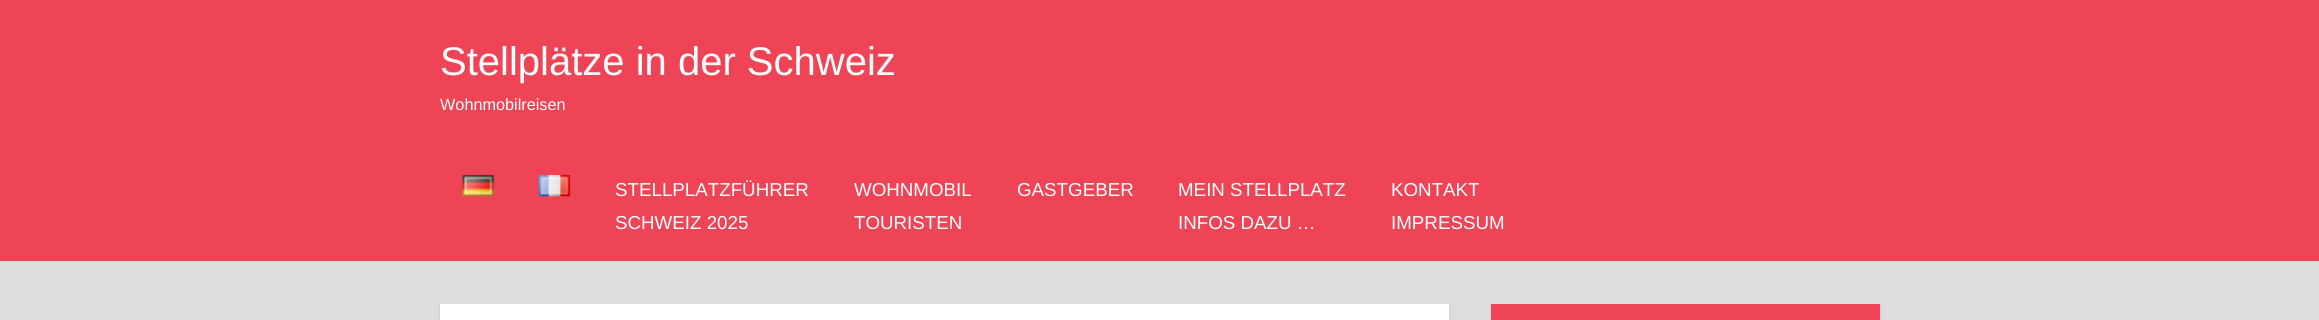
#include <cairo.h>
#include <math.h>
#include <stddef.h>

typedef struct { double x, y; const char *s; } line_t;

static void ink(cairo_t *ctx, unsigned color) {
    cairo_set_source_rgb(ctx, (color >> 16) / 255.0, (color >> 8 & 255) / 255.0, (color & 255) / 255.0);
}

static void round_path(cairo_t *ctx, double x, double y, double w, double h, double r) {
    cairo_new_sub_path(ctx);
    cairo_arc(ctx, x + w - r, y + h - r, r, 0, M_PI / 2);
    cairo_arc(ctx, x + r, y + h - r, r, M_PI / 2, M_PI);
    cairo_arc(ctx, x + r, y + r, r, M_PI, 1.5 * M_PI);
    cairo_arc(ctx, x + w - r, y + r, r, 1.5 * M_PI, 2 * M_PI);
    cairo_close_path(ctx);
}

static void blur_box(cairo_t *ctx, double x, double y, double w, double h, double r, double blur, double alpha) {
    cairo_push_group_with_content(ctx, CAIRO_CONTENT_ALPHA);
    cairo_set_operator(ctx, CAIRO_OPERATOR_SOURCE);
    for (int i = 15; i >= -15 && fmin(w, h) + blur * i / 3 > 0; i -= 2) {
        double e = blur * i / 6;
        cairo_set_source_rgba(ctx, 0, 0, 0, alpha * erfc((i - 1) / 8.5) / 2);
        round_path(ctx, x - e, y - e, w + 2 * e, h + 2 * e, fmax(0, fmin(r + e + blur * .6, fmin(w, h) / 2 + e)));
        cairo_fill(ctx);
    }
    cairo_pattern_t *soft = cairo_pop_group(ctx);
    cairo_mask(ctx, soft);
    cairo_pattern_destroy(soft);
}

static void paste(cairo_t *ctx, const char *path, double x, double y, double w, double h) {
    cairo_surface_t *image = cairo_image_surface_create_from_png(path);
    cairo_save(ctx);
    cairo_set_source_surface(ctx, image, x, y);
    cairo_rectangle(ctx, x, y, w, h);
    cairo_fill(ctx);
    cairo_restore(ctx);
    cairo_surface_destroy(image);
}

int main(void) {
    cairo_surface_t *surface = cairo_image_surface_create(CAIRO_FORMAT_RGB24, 2319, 320);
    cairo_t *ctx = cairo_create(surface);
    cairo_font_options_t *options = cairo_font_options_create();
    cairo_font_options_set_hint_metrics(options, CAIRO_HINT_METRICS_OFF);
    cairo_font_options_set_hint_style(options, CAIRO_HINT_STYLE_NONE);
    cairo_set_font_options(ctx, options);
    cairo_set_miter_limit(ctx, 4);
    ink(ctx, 0xDDDDDD);
    cairo_paint(ctx);
    ink(ctx, 0xEE4455);
    cairo_rectangle(ctx, 0, 0, 2319, 261);
    cairo_fill(ctx);
    cairo_select_font_face(ctx, "Liberation Sans", CAIRO_FONT_SLANT_NORMAL, CAIRO_FONT_WEIGHT_NORMAL);
    cairo_set_font_size(ctx, 40);
    ink(ctx, 0xFFFFFF);
    cairo_move_to(ctx, 440, 75);
    cairo_show_text(ctx, "Stellplätze in der Schweiz");
    cairo_set_font_size(ctx, 16.25);
    cairo_move_to(ctx, 440, 110);
    cairo_show_text(ctx, "Wohnmobilreisen");
    paste(ctx, "media/1.png", 462, 175, 32, 22);
    paste(ctx, "media/2.png", 538, 175, 32, 22);
    cairo_set_font_size(ctx, 18.75);
    {
        static const line_t items[] = {
            {615, 196, "STELLPLATZFÜHRER"},
            {615, 229, "SCHWEIZ 2025"},
            {854, 196, "WOHNMOBIL"},
            {854, 229, "TOURISTEN"},
            {1017, 196, "GASTGEBER"},
            {1178, 196, "MEIN STELLPLATZ"},
            {1178, 229, "INFOS DAZU …"},
            {1391, 196, "KONTAKT"},
            {1391, 229, "IMPRESSUM"},
        };
        for (size_t i = 0; i < sizeof items / sizeof *items; i++) {
            cairo_move_to(ctx, items[i].x, items[i].y);
            cairo_show_text(ctx, items[i].s);
        }
    }
    ink(ctx, 0xBBBBBB);
    blur_box(ctx, 440, 305, 1009, 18, 0, 1, 1);
    ink(ctx, 0xFFFFFF);
    cairo_rectangle(ctx, 440, 304, 1009, 16);
    cairo_fill(ctx);
    ink(ctx, 0xBBBBBB);
    blur_box(ctx, 1491, 305, 389, 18, 0, 1, 1);
    ink(ctx, 0xEE4455);
    cairo_rectangle(ctx, 1491, 304, 389, 16);
    cairo_fill(ctx);
    cairo_surface_write_to_png(surface, "image.png");
    cairo_font_options_destroy(options);
    cairo_destroy(ctx);
    cairo_surface_destroy(surface);
    return 0;
}
